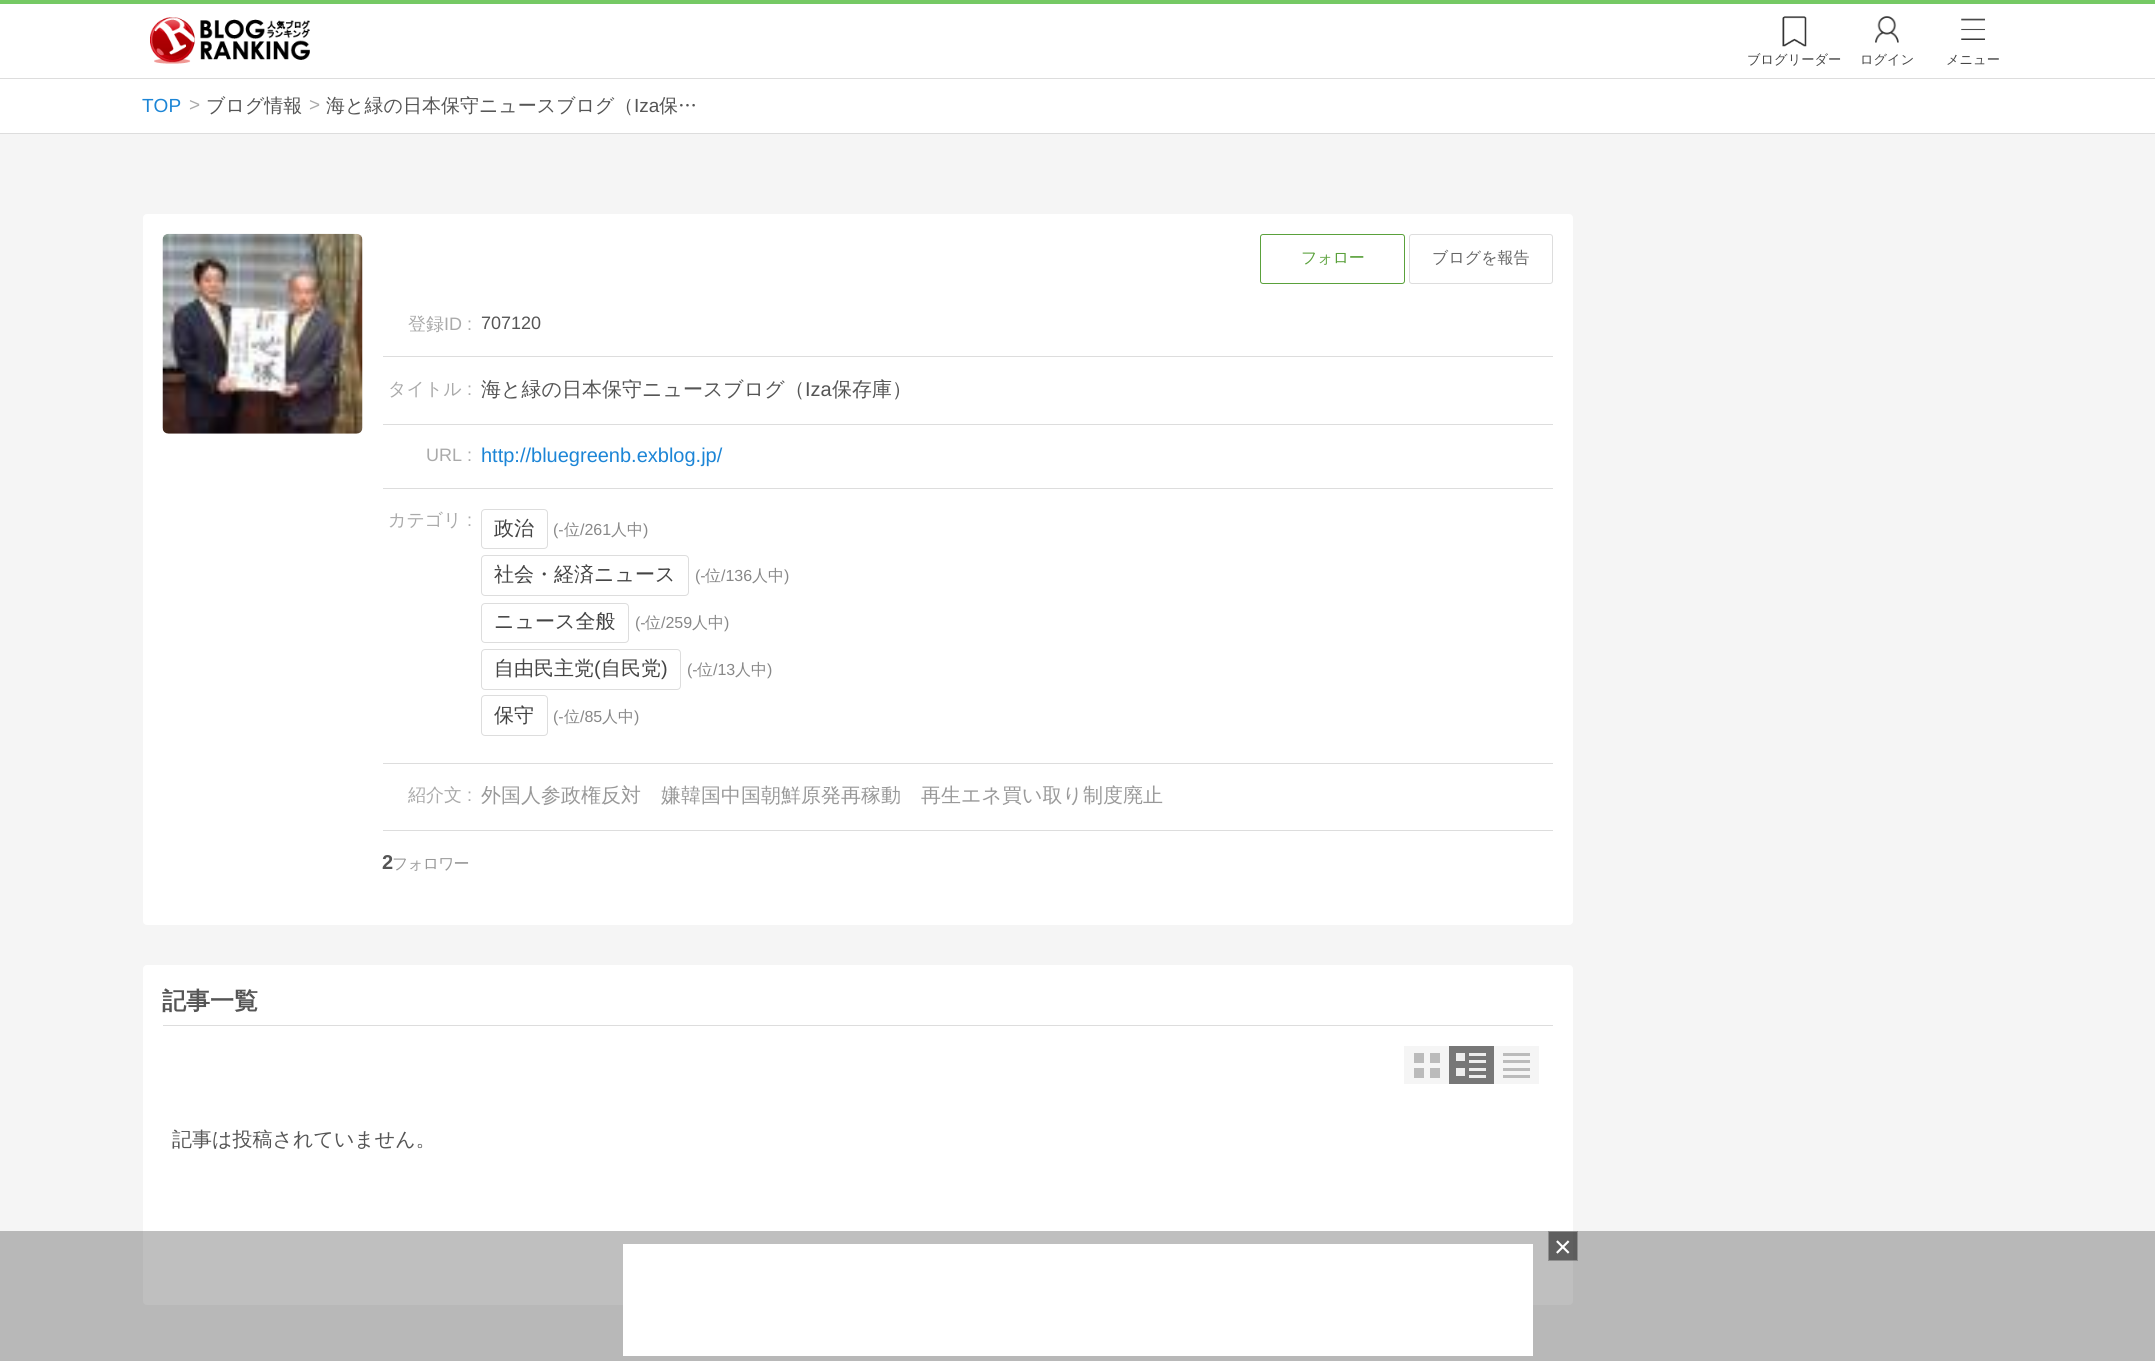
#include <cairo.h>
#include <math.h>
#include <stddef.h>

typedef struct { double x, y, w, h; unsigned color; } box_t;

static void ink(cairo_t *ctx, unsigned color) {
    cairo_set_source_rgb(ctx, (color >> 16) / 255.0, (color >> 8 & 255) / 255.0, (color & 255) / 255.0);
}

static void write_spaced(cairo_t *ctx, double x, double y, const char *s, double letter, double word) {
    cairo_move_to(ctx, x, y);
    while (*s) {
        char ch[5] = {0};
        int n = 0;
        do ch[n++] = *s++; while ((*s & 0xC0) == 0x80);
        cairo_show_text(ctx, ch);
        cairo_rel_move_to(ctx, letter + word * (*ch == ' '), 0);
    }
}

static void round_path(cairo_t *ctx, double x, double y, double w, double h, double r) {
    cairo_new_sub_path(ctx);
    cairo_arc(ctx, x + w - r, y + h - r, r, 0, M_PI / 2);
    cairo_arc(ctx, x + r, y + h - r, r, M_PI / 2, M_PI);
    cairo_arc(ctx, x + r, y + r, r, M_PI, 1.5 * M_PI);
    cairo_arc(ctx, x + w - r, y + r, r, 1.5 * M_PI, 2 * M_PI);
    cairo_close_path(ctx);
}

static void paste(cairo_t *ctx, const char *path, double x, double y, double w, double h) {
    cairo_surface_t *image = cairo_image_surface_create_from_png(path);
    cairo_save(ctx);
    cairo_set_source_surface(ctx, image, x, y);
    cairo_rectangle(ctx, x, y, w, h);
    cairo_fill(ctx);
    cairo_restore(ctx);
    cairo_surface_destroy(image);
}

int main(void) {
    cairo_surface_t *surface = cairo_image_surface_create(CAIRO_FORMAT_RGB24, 2155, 1361);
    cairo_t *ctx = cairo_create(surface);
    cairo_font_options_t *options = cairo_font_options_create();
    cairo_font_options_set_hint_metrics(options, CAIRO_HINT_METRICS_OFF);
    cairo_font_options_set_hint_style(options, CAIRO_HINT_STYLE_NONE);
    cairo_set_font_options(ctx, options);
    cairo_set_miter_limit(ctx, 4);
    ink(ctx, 0xFFFFFF);
    cairo_paint(ctx);
    ink(ctx, 0x75C964);
    cairo_rectangle(ctx, 0, 0, 2155, 4);
    cairo_fill(ctx);
    ink(ctx, 0xDDDDDD);
    cairo_rectangle(ctx, 0, 78, 2155, 1);
    cairo_fill(ctx);
    paste(ctx, "media/1.png", 150, 17, 160, 47);
    paste(ctx, "media/2.png", 1782, 16, 25, 31);
    cairo_select_font_face(ctx, "WenQuanYi Zen Hei Medium", CAIRO_FONT_SLANT_NORMAL, CAIRO_FONT_WEIGHT_NORMAL);
    cairo_set_font_size(ctx, 13.25);
    ink(ctx, 0x444444);
    cairo_move_to(ctx, 1747, 64);
    cairo_show_text(ctx, "ブログリーダー");
    paste(ctx, "media/3.png", 1875, 16, 24, 27);
    cairo_move_to(ctx, 1860, 64);
    cairo_show_text(ctx, "ログイン");
    paste(ctx, "media/4.png", 1961, 18, 24, 22);
    cairo_move_to(ctx, 1946, 64);
    cairo_show_text(ctx, "メニュー");
    ink(ctx, 0xDDDDDD);
    cairo_rectangle(ctx, 0, 133, 2155, 1);
    cairo_fill(ctx);
    cairo_select_font_face(ctx, "Liberation Sans", CAIRO_FONT_SLANT_NORMAL, CAIRO_FONT_WEIGHT_NORMAL);
    cairo_set_font_size(ctx, 19);
    ink(ctx, 0x1C85D6);
    cairo_move_to(ctx, 142, 112);
    cairo_show_text(ctx, "TOP");
    ink(ctx, 0xAAAAAA);
    cairo_move_to(ctx, 189, 111);
    cairo_show_text(ctx, ">");
    cairo_select_font_face(ctx, "WenQuanYi Zen Hei Medium", CAIRO_FONT_SLANT_NORMAL, CAIRO_FONT_WEIGHT_NORMAL);
    ink(ctx, 0x555555);
    cairo_move_to(ctx, 206, 112);
    cairo_show_text(ctx, "ブログ情報");
    cairo_select_font_face(ctx, "Liberation Sans", CAIRO_FONT_SLANT_NORMAL, CAIRO_FONT_WEIGHT_NORMAL);
    ink(ctx, 0xAAAAAA);
    cairo_move_to(ctx, 309, 111);
    cairo_show_text(ctx, ">");
    cairo_select_font_face(ctx, "WenQuanYi Zen Hei Medium", CAIRO_FONT_SLANT_NORMAL, CAIRO_FONT_WEIGHT_NORMAL);
    ink(ctx, 0x555555);
    cairo_move_to(ctx, 326, 112);
    cairo_show_text(ctx, "海と緑の日本保守ニュースブログ（");
    cairo_select_font_face(ctx, "Liberation Sans", CAIRO_FONT_SLANT_NORMAL, CAIRO_FONT_WEIGHT_NORMAL);
    cairo_move_to(ctx, 634, 112);
    cairo_show_text(ctx, "Iza");
    cairo_select_font_face(ctx, "WenQuanYi Zen Hei Medium", CAIRO_FONT_SLANT_NORMAL, CAIRO_FONT_WEIGHT_NORMAL);
    cairo_move_to(ctx, 659, 112);
    cairo_show_text(ctx, "保…");
    ink(ctx, 0xF5F5F5);
    cairo_rectangle(ctx, 0, 134, 2155, 1227);
    cairo_fill(ctx);
    ink(ctx, 0xFFFFFF);
    round_path(ctx, 143, 214, 1430, 711, 4);
    cairo_fill(ctx);
    paste(ctx, "media/5.png", 162, 233, 201, 201);
    round_path(ctx, 1260.5, 234.5, 144, 49, 2.5);
    ink(ctx, 0x5AA13B);
    cairo_set_line_width(ctx, 1);
    cairo_stroke(ctx);
    cairo_set_font_size(ctx, 16);
    write_spaced(ctx, 1301, 263, "フォロー", -0.5, 0);
    round_path(ctx, 1409.5, 234.5, 143, 49, 2.5);
    ink(ctx, 0xDDDDDD);
    cairo_stroke(ctx);
    ink(ctx, 0x666666);
    cairo_move_to(ctx, 1432, 263);
    cairo_show_text(ctx, "ブログを報告");
    ink(ctx, 0xDDDDDD);
    cairo_rectangle(ctx, 383, 356, 1170, 1);
    cairo_fill(ctx);
    cairo_set_font_size(ctx, 18);
    ink(ctx, 0xAAAAAA);
    cairo_move_to(ctx, 408, 330);
    cairo_show_text(ctx, "登録");
    cairo_select_font_face(ctx, "Liberation Sans", CAIRO_FONT_SLANT_NORMAL, CAIRO_FONT_WEIGHT_NORMAL);
    cairo_move_to(ctx, 444, 330);
    cairo_show_text(ctx, "ID :");
    ink(ctx, 0x555555);
    cairo_move_to(ctx, 481, 329);
    cairo_show_text(ctx, "707120");
    ink(ctx, 0xDDDDDD);
    cairo_rectangle(ctx, 383, 424, 1170, 1);
    cairo_fill(ctx);
    cairo_select_font_face(ctx, "WenQuanYi Zen Hei Medium", CAIRO_FONT_SLANT_NORMAL, CAIRO_FONT_WEIGHT_NORMAL);
    ink(ctx, 0xAAAAAA);
    cairo_move_to(ctx, 388, 395);
    cairo_show_text(ctx, "タイトル");
    cairo_select_font_face(ctx, "Liberation Sans", CAIRO_FONT_SLANT_NORMAL, CAIRO_FONT_WEIGHT_NORMAL);
    cairo_move_to(ctx, 467, 395);
    cairo_show_text(ctx, ":");
    cairo_select_font_face(ctx, "WenQuanYi Zen Hei Medium", CAIRO_FONT_SLANT_NORMAL, CAIRO_FONT_WEIGHT_NORMAL);
    cairo_set_font_size(ctx, 20);
    ink(ctx, 0x555555);
    cairo_move_to(ctx, 481, 396);
    cairo_show_text(ctx, "海と緑の日本保守ニュースブログ（");
    cairo_select_font_face(ctx, "Liberation Sans", CAIRO_FONT_SLANT_NORMAL, CAIRO_FONT_WEIGHT_NORMAL);
    cairo_move_to(ctx, 805, 396);
    cairo_show_text(ctx, "Iza");
    cairo_select_font_face(ctx, "WenQuanYi Zen Hei Medium", CAIRO_FONT_SLANT_NORMAL, CAIRO_FONT_WEIGHT_NORMAL);
    cairo_move_to(ctx, 832, 396);
    cairo_show_text(ctx, "保存庫）");
    ink(ctx, 0xDDDDDD);
    cairo_rectangle(ctx, 383, 488, 1170, 1);
    cairo_fill(ctx);
    cairo_select_font_face(ctx, "Liberation Sans", CAIRO_FONT_SLANT_NORMAL, CAIRO_FONT_WEIGHT_NORMAL);
    cairo_set_font_size(ctx, 18);
    ink(ctx, 0xAAAAAA);
    cairo_move_to(ctx, 426, 461);
    cairo_show_text(ctx, "URL :");
    cairo_set_font_size(ctx, 20);
    ink(ctx, 0x1C85D6);
    cairo_move_to(ctx, 481, 462);
    cairo_show_text(ctx, "http://bluegreenb.exblog.jp/");
    ink(ctx, 0xDDDDDD);
    cairo_rectangle(ctx, 383, 763, 1170, 1);
    cairo_fill(ctx);
    cairo_select_font_face(ctx, "WenQuanYi Zen Hei Medium", CAIRO_FONT_SLANT_NORMAL, CAIRO_FONT_WEIGHT_NORMAL);
    cairo_set_font_size(ctx, 18);
    ink(ctx, 0xAAAAAA);
    cairo_move_to(ctx, 388, 526);
    cairo_show_text(ctx, "カテゴリ");
    cairo_select_font_face(ctx, "Liberation Sans", CAIRO_FONT_SLANT_NORMAL, CAIRO_FONT_WEIGHT_NORMAL);
    cairo_move_to(ctx, 467, 526);
    cairo_show_text(ctx, ":");
    round_path(ctx, 481.5, 509.5, 66, 39, 3.5);
    ink(ctx, 0xDDDDDD);
    cairo_stroke(ctx);
    cairo_select_font_face(ctx, "WenQuanYi Zen Hei Medium", CAIRO_FONT_SLANT_NORMAL, CAIRO_FONT_WEIGHT_NORMAL);
    cairo_set_font_size(ctx, 20);
    ink(ctx, 0x444444);
    cairo_move_to(ctx, 494, 535);
    cairo_show_text(ctx, "政治");
    cairo_select_font_face(ctx, "Liberation Sans", CAIRO_FONT_SLANT_NORMAL, CAIRO_FONT_WEIGHT_NORMAL);
    cairo_set_font_size(ctx, 16);
    ink(ctx, 0x888888);
    cairo_move_to(ctx, 553, 535);
    cairo_show_text(ctx, "(-");
    cairo_select_font_face(ctx, "WenQuanYi Zen Hei Medium", CAIRO_FONT_SLANT_NORMAL, CAIRO_FONT_WEIGHT_NORMAL);
    cairo_move_to(ctx, 564, 535);
    cairo_show_text(ctx, "位");
    cairo_select_font_face(ctx, "Liberation Sans", CAIRO_FONT_SLANT_NORMAL, CAIRO_FONT_WEIGHT_NORMAL);
    cairo_move_to(ctx, 580, 535);
    cairo_show_text(ctx, "/261");
    cairo_select_font_face(ctx, "WenQuanYi Zen Hei Medium", CAIRO_FONT_SLANT_NORMAL, CAIRO_FONT_WEIGHT_NORMAL);
    cairo_move_to(ctx, 611, 535);
    cairo_show_text(ctx, "人中");
    cairo_select_font_face(ctx, "Liberation Sans", CAIRO_FONT_SLANT_NORMAL, CAIRO_FONT_WEIGHT_NORMAL);
    cairo_move_to(ctx, 643, 535);
    cairo_show_text(ctx, ")");
    round_path(ctx, 481.5, 555.5, 207, 40, 3.5);
    ink(ctx, 0xDDDDDD);
    cairo_stroke(ctx);
    cairo_select_font_face(ctx, "WenQuanYi Zen Hei Medium", CAIRO_FONT_SLANT_NORMAL, CAIRO_FONT_WEIGHT_NORMAL);
    cairo_set_font_size(ctx, 20);
    ink(ctx, 0x444444);
    cairo_move_to(ctx, 494, 581);
    cairo_show_text(ctx, "社会・経済ニュース");
    cairo_select_font_face(ctx, "Liberation Sans", CAIRO_FONT_SLANT_NORMAL, CAIRO_FONT_WEIGHT_NORMAL);
    cairo_set_font_size(ctx, 16);
    ink(ctx, 0x888888);
    cairo_move_to(ctx, 695, 581);
    cairo_show_text(ctx, "(-");
    cairo_select_font_face(ctx, "WenQuanYi Zen Hei Medium", CAIRO_FONT_SLANT_NORMAL, CAIRO_FONT_WEIGHT_NORMAL);
    cairo_move_to(ctx, 705, 581);
    cairo_show_text(ctx, "位");
    cairo_select_font_face(ctx, "Liberation Sans", CAIRO_FONT_SLANT_NORMAL, CAIRO_FONT_WEIGHT_NORMAL);
    cairo_move_to(ctx, 721, 581);
    cairo_show_text(ctx, "/136");
    cairo_select_font_face(ctx, "WenQuanYi Zen Hei Medium", CAIRO_FONT_SLANT_NORMAL, CAIRO_FONT_WEIGHT_NORMAL);
    cairo_move_to(ctx, 752, 581);
    cairo_show_text(ctx, "人中");
    cairo_select_font_face(ctx, "Liberation Sans", CAIRO_FONT_SLANT_NORMAL, CAIRO_FONT_WEIGHT_NORMAL);
    cairo_move_to(ctx, 784, 581);
    cairo_show_text(ctx, ")");
    round_path(ctx, 481.5, 603.5, 147, 39, 3.5);
    ink(ctx, 0xDDDDDD);
    cairo_stroke(ctx);
    cairo_select_font_face(ctx, "WenQuanYi Zen Hei Medium", CAIRO_FONT_SLANT_NORMAL, CAIRO_FONT_WEIGHT_NORMAL);
    cairo_set_font_size(ctx, 20);
    ink(ctx, 0x444444);
    cairo_move_to(ctx, 494, 628);
    cairo_show_text(ctx, "ニュース全般");
    cairo_select_font_face(ctx, "Liberation Sans", CAIRO_FONT_SLANT_NORMAL, CAIRO_FONT_WEIGHT_NORMAL);
    cairo_set_font_size(ctx, 16);
    ink(ctx, 0x888888);
    cairo_move_to(ctx, 635, 628);
    cairo_show_text(ctx, "(-");
    cairo_select_font_face(ctx, "WenQuanYi Zen Hei Medium", CAIRO_FONT_SLANT_NORMAL, CAIRO_FONT_WEIGHT_NORMAL);
    cairo_move_to(ctx, 645, 628);
    cairo_show_text(ctx, "位");
    cairo_select_font_face(ctx, "Liberation Sans", CAIRO_FONT_SLANT_NORMAL, CAIRO_FONT_WEIGHT_NORMAL);
    cairo_move_to(ctx, 661, 628);
    cairo_show_text(ctx, "/259");
    cairo_select_font_face(ctx, "WenQuanYi Zen Hei Medium", CAIRO_FONT_SLANT_NORMAL, CAIRO_FONT_WEIGHT_NORMAL);
    cairo_move_to(ctx, 692, 628);
    cairo_show_text(ctx, "人中");
    cairo_select_font_face(ctx, "Liberation Sans", CAIRO_FONT_SLANT_NORMAL, CAIRO_FONT_WEIGHT_NORMAL);
    cairo_move_to(ctx, 724, 628);
    cairo_show_text(ctx, ")");
    round_path(ctx, 481.5, 649.5, 199, 40, 3.5);
    ink(ctx, 0xDDDDDD);
    cairo_stroke(ctx);
    cairo_select_font_face(ctx, "WenQuanYi Zen Hei Medium", CAIRO_FONT_SLANT_NORMAL, CAIRO_FONT_WEIGHT_NORMAL);
    cairo_set_font_size(ctx, 20);
    ink(ctx, 0x444444);
    cairo_move_to(ctx, 494, 675);
    cairo_show_text(ctx, "自由民主党");
    cairo_select_font_face(ctx, "Liberation Sans", CAIRO_FONT_SLANT_NORMAL, CAIRO_FONT_WEIGHT_NORMAL);
    cairo_move_to(ctx, 594, 675);
    cairo_show_text(ctx, "(");
    cairo_select_font_face(ctx, "WenQuanYi Zen Hei Medium", CAIRO_FONT_SLANT_NORMAL, CAIRO_FONT_WEIGHT_NORMAL);
    cairo_move_to(ctx, 601, 675);
    cairo_show_text(ctx, "自民党");
    cairo_select_font_face(ctx, "Liberation Sans", CAIRO_FONT_SLANT_NORMAL, CAIRO_FONT_WEIGHT_NORMAL);
    cairo_move_to(ctx, 661, 675);
    cairo_show_text(ctx, ")");
    cairo_set_font_size(ctx, 16);
    ink(ctx, 0x888888);
    cairo_move_to(ctx, 687, 675);
    cairo_show_text(ctx, "(-");
    cairo_select_font_face(ctx, "WenQuanYi Zen Hei Medium", CAIRO_FONT_SLANT_NORMAL, CAIRO_FONT_WEIGHT_NORMAL);
    cairo_move_to(ctx, 697, 675);
    cairo_show_text(ctx, "位");
    cairo_select_font_face(ctx, "Liberation Sans", CAIRO_FONT_SLANT_NORMAL, CAIRO_FONT_WEIGHT_NORMAL);
    cairo_move_to(ctx, 713, 675);
    cairo_show_text(ctx, "/13");
    cairo_select_font_face(ctx, "WenQuanYi Zen Hei Medium", CAIRO_FONT_SLANT_NORMAL, CAIRO_FONT_WEIGHT_NORMAL);
    cairo_move_to(ctx, 735, 675);
    cairo_show_text(ctx, "人中");
    cairo_select_font_face(ctx, "Liberation Sans", CAIRO_FONT_SLANT_NORMAL, CAIRO_FONT_WEIGHT_NORMAL);
    cairo_move_to(ctx, 767, 675);
    cairo_show_text(ctx, ")");
    round_path(ctx, 481.5, 695.5, 66, 40, 3.5);
    ink(ctx, 0xDDDDDD);
    cairo_stroke(ctx);
    cairo_select_font_face(ctx, "WenQuanYi Zen Hei Medium", CAIRO_FONT_SLANT_NORMAL, CAIRO_FONT_WEIGHT_NORMAL);
    cairo_set_font_size(ctx, 20);
    ink(ctx, 0x444444);
    cairo_move_to(ctx, 494, 722);
    cairo_show_text(ctx, "保守");
    cairo_select_font_face(ctx, "Liberation Sans", CAIRO_FONT_SLANT_NORMAL, CAIRO_FONT_WEIGHT_NORMAL);
    cairo_set_font_size(ctx, 16);
    ink(ctx, 0x888888);
    cairo_move_to(ctx, 553, 722);
    cairo_show_text(ctx, "(-");
    cairo_select_font_face(ctx, "WenQuanYi Zen Hei Medium", CAIRO_FONT_SLANT_NORMAL, CAIRO_FONT_WEIGHT_NORMAL);
    cairo_move_to(ctx, 564, 722);
    cairo_show_text(ctx, "位");
    cairo_select_font_face(ctx, "Liberation Sans", CAIRO_FONT_SLANT_NORMAL, CAIRO_FONT_WEIGHT_NORMAL);
    cairo_move_to(ctx, 580, 722);
    cairo_show_text(ctx, "/85");
    cairo_select_font_face(ctx, "WenQuanYi Zen Hei Medium", CAIRO_FONT_SLANT_NORMAL, CAIRO_FONT_WEIGHT_NORMAL);
    cairo_move_to(ctx, 602, 722);
    cairo_show_text(ctx, "人中");
    cairo_select_font_face(ctx, "Liberation Sans", CAIRO_FONT_SLANT_NORMAL, CAIRO_FONT_WEIGHT_NORMAL);
    cairo_move_to(ctx, 634, 722);
    cairo_show_text(ctx, ")");
    ink(ctx, 0xDDDDDD);
    cairo_rectangle(ctx, 383, 830, 1170, 1);
    cairo_fill(ctx);
    cairo_select_font_face(ctx, "WenQuanYi Zen Hei Medium", CAIRO_FONT_SLANT_NORMAL, CAIRO_FONT_WEIGHT_NORMAL);
    cairo_set_font_size(ctx, 18);
    ink(ctx, 0xAAAAAA);
    cairo_move_to(ctx, 408, 801);
    cairo_show_text(ctx, "紹介文");
    cairo_select_font_face(ctx, "Liberation Sans", CAIRO_FONT_SLANT_NORMAL, CAIRO_FONT_WEIGHT_NORMAL);
    cairo_move_to(ctx, 467, 801);
    cairo_show_text(ctx, ":");
    cairo_select_font_face(ctx, "WenQuanYi Zen Hei Medium", CAIRO_FONT_SLANT_NORMAL, CAIRO_FONT_WEIGHT_NORMAL);
    cairo_set_font_size(ctx, 20);
    ink(ctx, 0x999999);
    cairo_move_to(ctx, 481, 802);
    cairo_show_text(ctx, "外国人参政権反対　嫌韓国中国朝鮮原発再稼動　再生エネ買い取り制度廃止");
    cairo_select_font_face(ctx, "Liberation Sans", CAIRO_FONT_SLANT_NORMAL, CAIRO_FONT_WEIGHT_BOLD);
    ink(ctx, 0x555555);
    write_spaced(ctx, 382, 869, "2", -1, 0);
    cairo_select_font_face(ctx, "WenQuanYi Zen Hei Medium", CAIRO_FONT_SLANT_NORMAL, CAIRO_FONT_WEIGHT_NORMAL);
    cairo_set_font_size(ctx, 16);
    ink(ctx, 0x999999);
    write_spaced(ctx, 392, 869, "フォロワー", -1, 0);
    ink(ctx, 0xFFFFFF);
    round_path(ctx, 143, 965, 1430, 340, 4);
    cairo_fill(ctx);
    cairo_select_font_face(ctx, "WenQuanYi Zen Hei", CAIRO_FONT_SLANT_NORMAL, CAIRO_FONT_WEIGHT_BOLD);
    cairo_set_font_size(ctx, 24);
    ink(ctx, 0x555555);
    cairo_move_to(ctx, 162, 1009);
    cairo_show_text(ctx, "記事一覧");
    {
        static const box_t items[] = {
            {163, 1025, 1390, 1, 0xDDDDDD},
            {1404, 1046, 45, 38, 0xF5F5F5},
            {1414, 1053, 10, 10, 0xBBBBBB},
            {1430, 1053, 10, 10, 0xBBBBBB},
            {1414, 1068, 10, 10, 0xBBBBBB},
            {1430, 1068, 10, 10, 0xBBBBBB},
            {1449, 1046, 45, 38, 0x777777},
            {1469, 1053, 17, 3, 0xEEEEEE},
            {1469, 1060, 17, 3, 0xEEEEEE},
            {1456, 1053, 9, 8, 0xEEEEEE},
            {1469, 1068, 17, 3, 0xEEEEEE},
            {1469, 1075, 17, 3, 0xEEEEEE},
            {1456, 1068, 9, 8, 0xEEEEEE},
            {1494, 1046, 45, 38, 0xF5F5F5},
            {1503, 1053, 27, 3, 0xBBBBBB},
            {1503, 1060, 27, 3, 0xBBBBBB},
            {1503, 1068, 27, 3, 0xBBBBBB},
            {1503, 1075, 27, 3, 0xBBBBBB},
        };
        for (size_t i = 0; i < sizeof items / sizeof *items; i++) {
            ink(ctx, items[i].color);
            cairo_rectangle(ctx, items[i].x, items[i].y, items[i].w, items[i].h);
            cairo_fill(ctx);
        }
    }
    cairo_select_font_face(ctx, "WenQuanYi Zen Hei Medium", CAIRO_FONT_SLANT_NORMAL, CAIRO_FONT_WEIGHT_NORMAL);
    cairo_set_font_size(ctx, 20);
    ink(ctx, 0x555555);
    cairo_move_to(ctx, 172, 1146);
    cairo_show_text(ctx, "記事は投稿されていません。");
    cairo_set_source_rgba(ctx, 0.157, 0.157, 0.157, 0.3);
    cairo_rectangle(ctx, 0, 1231, 2155, 130);
    cairo_fill(ctx);
    ink(ctx, 0xFFFFFF);
    cairo_rectangle(ctx, 623, 1244, 910, 112);
    cairo_fill(ctx);
    cairo_set_source_rgba(ctx, 0, 0, 0, 0.5);
    cairo_rectangle(ctx, 1548, 1231, 30, 30);
    cairo_fill(ctx);
    cairo_rectangle(ctx, 1548.5, 1231.5, 29, 29);
    cairo_set_source_rgba(ctx, 1, 1, 1, 0.3);
    cairo_stroke(ctx);
    cairo_select_font_face(ctx, "Liberation Sans", CAIRO_FONT_SLANT_NORMAL, CAIRO_FONT_WEIGHT_NORMAL);
    cairo_set_font_size(ctx, 30);
    ink(ctx, 0xFFFFFF);
    cairo_move_to(ctx, 1554, 1257);
    cairo_show_text(ctx, "×");
    cairo_surface_write_to_png(surface, "image.png");
    cairo_font_options_destroy(options);
    cairo_destroy(ctx);
    cairo_surface_destroy(surface);
    return 0;
}
